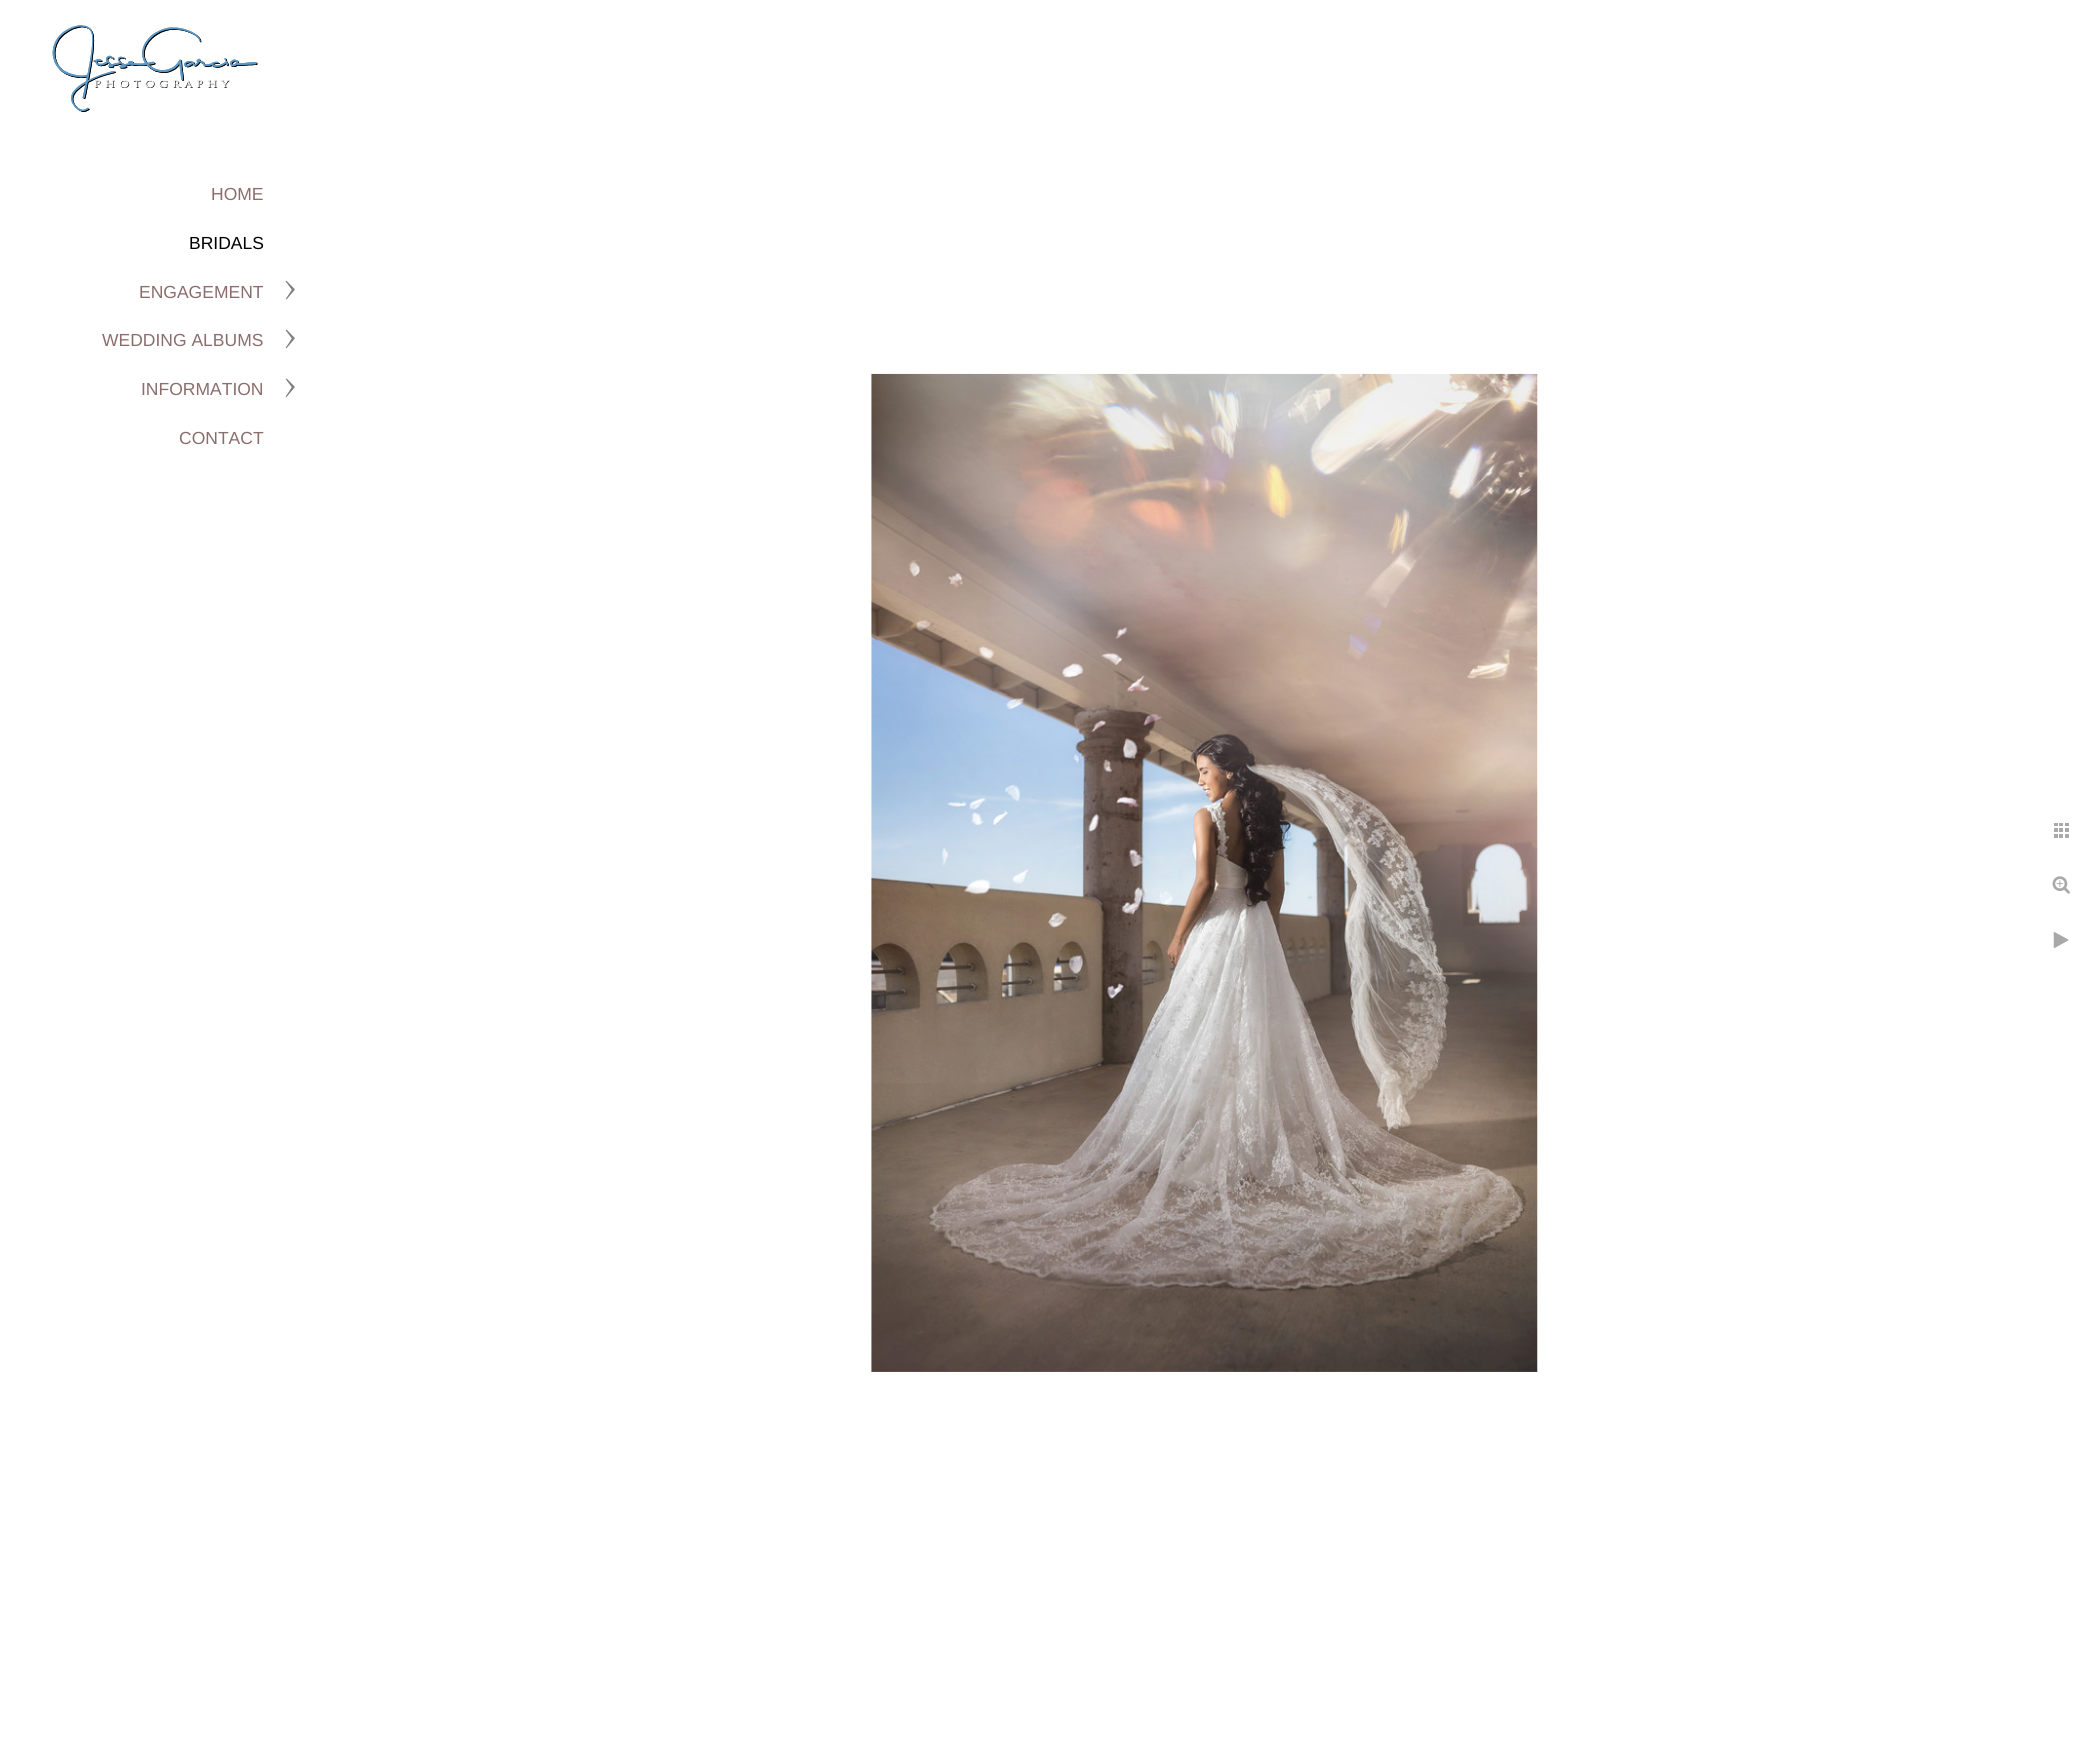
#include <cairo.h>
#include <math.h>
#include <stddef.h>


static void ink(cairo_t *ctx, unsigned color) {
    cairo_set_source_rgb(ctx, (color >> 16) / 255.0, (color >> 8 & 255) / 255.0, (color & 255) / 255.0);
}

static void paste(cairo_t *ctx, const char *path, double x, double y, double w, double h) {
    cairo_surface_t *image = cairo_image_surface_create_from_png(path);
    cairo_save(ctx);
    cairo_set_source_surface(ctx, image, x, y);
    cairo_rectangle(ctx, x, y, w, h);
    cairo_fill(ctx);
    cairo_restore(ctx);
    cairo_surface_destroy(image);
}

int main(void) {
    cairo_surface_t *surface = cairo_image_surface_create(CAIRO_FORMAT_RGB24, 2095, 1743);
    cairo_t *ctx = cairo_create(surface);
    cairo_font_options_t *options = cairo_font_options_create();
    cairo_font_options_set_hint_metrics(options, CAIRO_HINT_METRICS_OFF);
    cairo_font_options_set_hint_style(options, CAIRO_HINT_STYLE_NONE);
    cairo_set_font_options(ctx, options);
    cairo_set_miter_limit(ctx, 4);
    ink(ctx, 0xFFFFFF);
    cairo_paint(ctx);
    paste(ctx, "media/1.png", 52, 25, 206, 87);
    cairo_select_font_face(ctx, "Liberation Sans", CAIRO_FONT_SLANT_NORMAL, CAIRO_FONT_WEIGHT_NORMAL);
    cairo_set_font_size(ctx, 17.5);
    ink(ctx, 0x8B6D6D);
    cairo_move_to(ctx, 211, 200);
    cairo_show_text(ctx, "HOME");
    ink(ctx, 0x000000);
    cairo_move_to(ctx, 189, 249);
    cairo_show_text(ctx, "BRIDALS");
    ink(ctx, 0x8B6D6D);
    cairo_move_to(ctx, 139, 298);
    cairo_show_text(ctx, "ENGAGEMENT");
    paste(ctx, "media/2.png", 285, 280, 10, 20);
    cairo_move_to(ctx, 102, 346);
    cairo_show_text(ctx, "WEDDING ALBUMS");
    paste(ctx, "media/3.png", 285, 329, 10, 20);
    cairo_move_to(ctx, 141, 395);
    cairo_show_text(ctx, "INFORMATION");
    paste(ctx, "media/4.png", 285, 378, 10, 20);
    cairo_move_to(ctx, 179, 444);
    cairo_show_text(ctx, "CONTACT");
    paste(ctx, "media/5.png", 871, 373, 667, 999);
    paste(ctx, "media/6.png", 2054, 823, 15, 15);
    paste(ctx, "media/7.png", 2052, 876, 18, 18);
    paste(ctx, "media/8.png", 2053, 932, 16, 16);
    cairo_surface_write_to_png(surface, "image.png");
    cairo_font_options_destroy(options);
    cairo_destroy(ctx);
    cairo_surface_destroy(surface);
    return 0;
}
